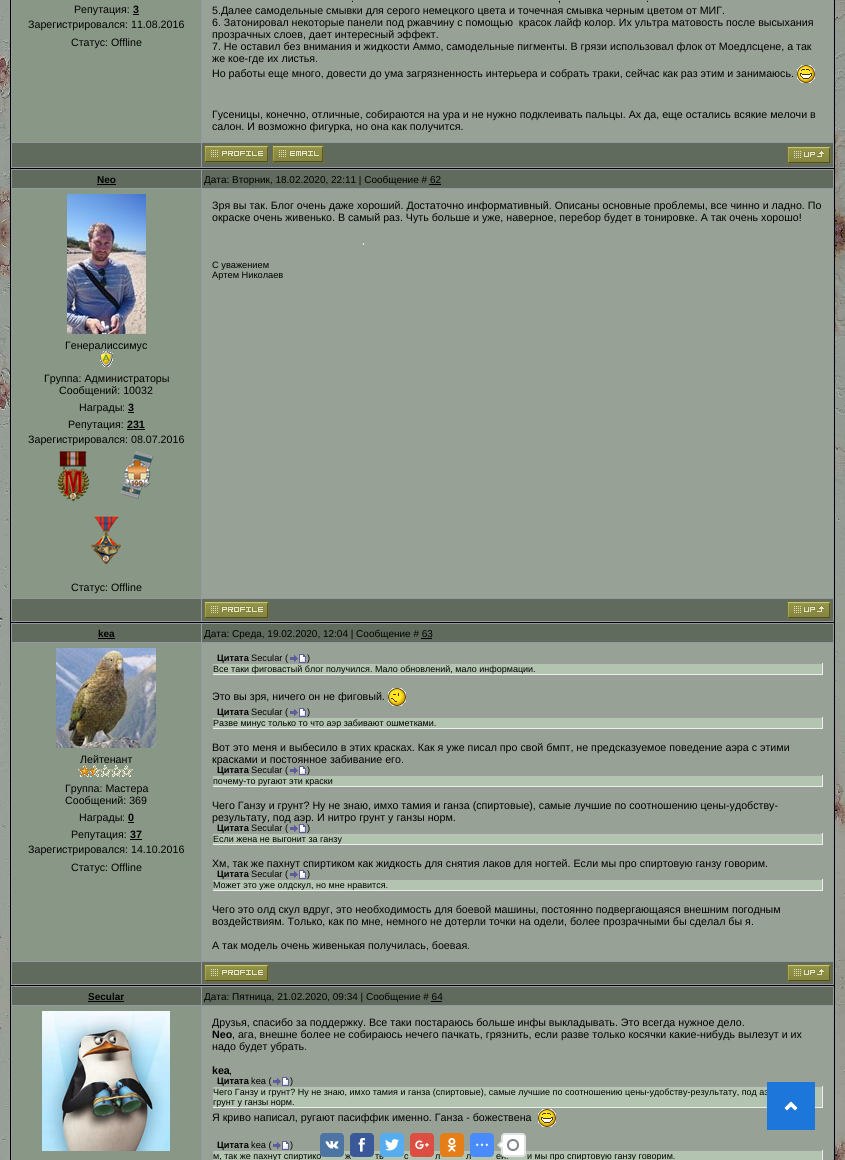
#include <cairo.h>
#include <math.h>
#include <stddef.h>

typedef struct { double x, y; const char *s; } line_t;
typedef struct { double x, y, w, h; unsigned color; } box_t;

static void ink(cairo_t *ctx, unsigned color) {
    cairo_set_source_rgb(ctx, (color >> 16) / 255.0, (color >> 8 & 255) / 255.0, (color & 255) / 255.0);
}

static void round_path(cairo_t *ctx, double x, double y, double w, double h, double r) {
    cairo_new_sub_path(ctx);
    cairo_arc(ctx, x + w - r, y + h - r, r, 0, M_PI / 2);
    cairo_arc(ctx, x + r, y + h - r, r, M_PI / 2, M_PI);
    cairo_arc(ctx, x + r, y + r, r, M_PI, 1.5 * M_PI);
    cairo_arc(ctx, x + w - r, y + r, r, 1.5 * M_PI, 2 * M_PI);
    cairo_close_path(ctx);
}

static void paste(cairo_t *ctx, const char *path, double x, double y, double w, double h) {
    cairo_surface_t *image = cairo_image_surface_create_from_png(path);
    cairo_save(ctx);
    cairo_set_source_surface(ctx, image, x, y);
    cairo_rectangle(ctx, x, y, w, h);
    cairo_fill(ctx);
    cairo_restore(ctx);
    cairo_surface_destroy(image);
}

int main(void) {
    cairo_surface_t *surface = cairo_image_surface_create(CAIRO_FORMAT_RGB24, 845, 1160);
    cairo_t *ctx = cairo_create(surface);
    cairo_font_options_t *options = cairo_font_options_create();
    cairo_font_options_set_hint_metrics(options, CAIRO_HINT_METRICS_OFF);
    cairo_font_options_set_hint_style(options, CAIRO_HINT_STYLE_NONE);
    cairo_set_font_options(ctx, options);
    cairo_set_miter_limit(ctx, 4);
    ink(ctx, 0xFFFFFF);
    cairo_paint(ctx);
    paste(ctx, "media/1.png", 0, 0, 845, 1160);
    {
        static const box_t items[] = {
            {10, 0, 825, 1160, 0x000000},
            {11, 0, 823, 168, 0x9498A1},
            {12, 0, 189, 142, 0x899886},
        };
        for (size_t i = 0; i < sizeof items / sizeof *items; i++) {
            ink(ctx, items[i].color);
            cairo_rectangle(ctx, items[i].x, items[i].y, items[i].w, items[i].h);
            cairo_fill(ctx);
        }
    }
    cairo_select_font_face(ctx, "Liberation Sans", CAIRO_FONT_SLANT_NORMAL, CAIRO_FONT_WEIGHT_NORMAL);
    cairo_set_font_size(ctx, 10.67);
    ink(ctx, 0x000000);
    cairo_move_to(ctx, 74, 13);
    cairo_show_text(ctx, "Репутация:");
    cairo_select_font_face(ctx, "Liberation Sans", CAIRO_FONT_SLANT_NORMAL, CAIRO_FONT_WEIGHT_BOLD);
    cairo_move_to(ctx, 133, 13);
    cairo_show_text(ctx, "3");
    cairo_rectangle(ctx, 133, 14, 6, 1);
    cairo_fill(ctx);
    cairo_select_font_face(ctx, "Liberation Sans", CAIRO_FONT_SLANT_NORMAL, CAIRO_FONT_WEIGHT_NORMAL);
    cairo_move_to(ctx, 28, 28);
    cairo_show_text(ctx, "Зарегистрировался: 11.08.2016");
    cairo_move_to(ctx, 71, 46);
    cairo_show_text(ctx, "Статус: Offline");
    ink(ctx, 0x98A196);
    cairo_rectangle(ctx, 202, 0, 631, 142);
    cairo_fill(ctx);
    ink(ctx, 0x000000);
    {
        static const line_t items[] = {
            {351, 2, "."},
            {558, 2, ","},
            {646, 2, "."},
            {212, 14, "5.Далее самодельные смывки для серого немецкого цвета и точечная смывка черным цветом от МИГ."},
            {212, 26, "6. Затонировал некоторые панели под ржавчину с помощью  красок лайф колор. Их ультра матовость после высыхания"},
            {212, 38, "прозрачных слоев, дает интересный эффект."},
            {212, 50, "7. Не оставил без внимания и жидкости Аммо, самодельные пигменты. В грязи использовал флок от Моедлсцене, а так"},
            {212, 62, "же кое-где их листья."},
            {212, 77, "Но работы еще много, довести до ума загрязненность интерьера и собрать траки, сейчас как раз этим и занимаюсь."},
        };
        for (size_t i = 0; i < sizeof items / sizeof *items; i++) {
            cairo_move_to(ctx, items[i].x, items[i].y);
            cairo_show_text(ctx, items[i].s);
        }
    }
    paste(ctx, "media/2.png", 797, 65, 18, 18);
    cairo_move_to(ctx, 212, 118);
    cairo_show_text(ctx, "Гусеницы, конечно, отличные, собираются на ура и не нужно подклеивать пальцы. Ах да, еще остались всякие мелочи в");
    cairo_move_to(ctx, 212, 130);
    cairo_show_text(ctx, "салон. И возможно фигурка, но она как получится.");
    ink(ctx, 0x606B5E);
    cairo_rectangle(ctx, 12, 143, 189, 24);
    cairo_fill(ctx);
    cairo_rectangle(ctx, 202, 143, 631, 24);
    cairo_fill(ctx);
    paste(ctx, "media/3.png", 204, 145, 65, 18);
    paste(ctx, "media/4.png", 272, 145, 52, 18);
    paste(ctx, "media/5.png", 787, 146, 44, 18);
    ink(ctx, 0x9498A1);
    cairo_rectangle(ctx, 11, 169, 823, 453);
    cairo_fill(ctx);
    ink(ctx, 0x606B5E);
    cairo_rectangle(ctx, 12, 170, 189, 18);
    cairo_fill(ctx);
    cairo_select_font_face(ctx, "Liberation Sans", CAIRO_FONT_SLANT_NORMAL, CAIRO_FONT_WEIGHT_BOLD);
    cairo_set_font_size(ctx, 10);
    ink(ctx, 0x000000);
    cairo_move_to(ctx, 97, 183);
    cairo_show_text(ctx, "Neo");
    cairo_rectangle(ctx, 97, 184, 19, 1);
    cairo_fill(ctx);
    ink(ctx, 0x606B5E);
    cairo_rectangle(ctx, 202, 170, 631, 18);
    cairo_fill(ctx);
    cairo_select_font_face(ctx, "Liberation Sans", CAIRO_FONT_SLANT_NORMAL, CAIRO_FONT_WEIGHT_NORMAL);
    ink(ctx, 0x000000);
    cairo_move_to(ctx, 204, 183);
    cairo_show_text(ctx, "Дата: Вторник, 18.02.2020, 22:11 | Сообщение # 62");
    cairo_rectangle(ctx, 429, 184, 12, 1);
    cairo_fill(ctx);
    ink(ctx, 0x98A196);
    cairo_rectangle(ctx, 202, 189, 631, 409);
    cairo_fill(ctx);
    cairo_set_font_size(ctx, 10.67);
    ink(ctx, 0x000000);
    cairo_move_to(ctx, 212, 209);
    cairo_show_text(ctx, "Зря вы так. Блог очень даже хороший. Достаточно информативный. Описаны основные проблемы, все чинно и ладно. По");
    cairo_move_to(ctx, 212, 221);
    cairo_show_text(ctx, "окраске очень живенько. В самый раз. Чуть больше и уже, наверное, перебор будет в тонировке. А так очень хорошо!");
    {
        static const box_t items[] = {
            {212, 243, 152, 1, 0x9F9F9F},
            {363, 243, 1, 2, 0xEEEEEE},
            {212, 243, 1, 2, 0x9F9F9F},
        };
        for (size_t i = 0; i < sizeof items / sizeof *items; i++) {
            ink(ctx, items[i].color);
            cairo_rectangle(ctx, items[i].x, items[i].y, items[i].w, items[i].h);
            cairo_fill(ctx);
        }
    }
    cairo_set_font_size(ctx, 9.25);
    ink(ctx, 0x000000);
    cairo_move_to(ctx, 212, 268);
    cairo_show_text(ctx, "С уважением");
    cairo_move_to(ctx, 212, 278);
    cairo_show_text(ctx, "Артем Николаев");
    ink(ctx, 0x899886);
    cairo_rectangle(ctx, 12, 189, 189, 409);
    cairo_fill(ctx);
    paste(ctx, "media/6.png", 67, 194, 79, 140);
    cairo_set_font_size(ctx, 10.67);
    ink(ctx, 0x000000);
    cairo_move_to(ctx, 65, 349);
    cairo_show_text(ctx, "Генералиссимус");
    paste(ctx, "media/7.png", 100, 351, 13, 16);
    {
        static const line_t items[] = {
            {44, 382, "Группа: Администраторы"},
            {59, 394, "Сообщений: 10032"},
            {79, 411, "Награды:"},
        };
        for (size_t i = 0; i < sizeof items / sizeof *items; i++) {
            cairo_move_to(ctx, items[i].x, items[i].y);
            cairo_show_text(ctx, items[i].s);
        }
    }
    cairo_select_font_face(ctx, "Liberation Sans", CAIRO_FONT_SLANT_NORMAL, CAIRO_FONT_WEIGHT_BOLD);
    cairo_move_to(ctx, 128, 411);
    cairo_show_text(ctx, "3");
    cairo_rectangle(ctx, 128, 412, 6, 1);
    cairo_fill(ctx);
    cairo_select_font_face(ctx, "Liberation Sans", CAIRO_FONT_SLANT_NORMAL, CAIRO_FONT_WEIGHT_NORMAL);
    cairo_move_to(ctx, 68, 428);
    cairo_show_text(ctx, "Репутация:");
    cairo_select_font_face(ctx, "Liberation Sans", CAIRO_FONT_SLANT_NORMAL, CAIRO_FONT_WEIGHT_BOLD);
    cairo_move_to(ctx, 127, 428);
    cairo_show_text(ctx, "231");
    cairo_rectangle(ctx, 127, 429, 18, 1);
    cairo_fill(ctx);
    cairo_select_font_face(ctx, "Liberation Sans", CAIRO_FONT_SLANT_NORMAL, CAIRO_FONT_WEIGHT_NORMAL);
    cairo_move_to(ctx, 28, 443);
    cairo_show_text(ctx, "Зарегистрировался: 08.07.2016");
    paste(ctx, "media/8.png", 57, 451, 33, 51);
    paste(ctx, "media/9.png", 120, 451, 34, 48);
    paste(ctx, "media/10.png", 91, 515, 30, 50);
    cairo_move_to(ctx, 71, 591);
    cairo_show_text(ctx, "Статус: Offline");
    ink(ctx, 0x606B5E);
    cairo_rectangle(ctx, 12, 599, 189, 22);
    cairo_fill(ctx);
    cairo_rectangle(ctx, 202, 599, 631, 22);
    cairo_fill(ctx);
    paste(ctx, "media/3.png", 204, 601, 65, 18);
    paste(ctx, "media/5.png", 787, 601, 44, 18);
    ink(ctx, 0x9498A1);
    cairo_rectangle(ctx, 11, 623, 823, 362);
    cairo_fill(ctx);
    ink(ctx, 0x606B5E);
    cairo_rectangle(ctx, 12, 624, 189, 18);
    cairo_fill(ctx);
    cairo_select_font_face(ctx, "Liberation Sans", CAIRO_FONT_SLANT_NORMAL, CAIRO_FONT_WEIGHT_BOLD);
    cairo_set_font_size(ctx, 10);
    ink(ctx, 0x000000);
    cairo_move_to(ctx, 98, 637);
    cairo_show_text(ctx, "kea");
    cairo_rectangle(ctx, 98, 638, 17, 1);
    cairo_fill(ctx);
    ink(ctx, 0x606B5E);
    cairo_rectangle(ctx, 202, 624, 631, 18);
    cairo_fill(ctx);
    cairo_select_font_face(ctx, "Liberation Sans", CAIRO_FONT_SLANT_NORMAL, CAIRO_FONT_WEIGHT_NORMAL);
    ink(ctx, 0x000000);
    cairo_move_to(ctx, 204, 637);
    cairo_show_text(ctx, "Дата: Среда, 19.02.2020, 12:04 | Сообщение # 63");
    cairo_rectangle(ctx, 421, 638, 11, 1);
    cairo_fill(ctx);
    ink(ctx, 0x899886);
    cairo_rectangle(ctx, 12, 643, 189, 318);
    cairo_fill(ctx);
    paste(ctx, "media/11.png", 56, 648, 100, 100);
    cairo_set_font_size(ctx, 10.67);
    ink(ctx, 0x000000);
    cairo_move_to(ctx, 80, 763);
    cairo_show_text(ctx, "Лейтенант");
    paste(ctx, "media/12.png", 78, 765, 55, 12);
    {
        static const line_t items[] = {
            {65, 792, "Группа: Мастера"},
            {65, 804, "Сообщений: 369"},
            {79, 821, "Награды:"},
        };
        for (size_t i = 0; i < sizeof items / sizeof *items; i++) {
            cairo_move_to(ctx, items[i].x, items[i].y);
            cairo_show_text(ctx, items[i].s);
        }
    }
    cairo_select_font_face(ctx, "Liberation Sans", CAIRO_FONT_SLANT_NORMAL, CAIRO_FONT_WEIGHT_BOLD);
    cairo_move_to(ctx, 128, 821);
    cairo_show_text(ctx, "0");
    cairo_rectangle(ctx, 128, 822, 6, 1);
    cairo_fill(ctx);
    cairo_select_font_face(ctx, "Liberation Sans", CAIRO_FONT_SLANT_NORMAL, CAIRO_FONT_WEIGHT_NORMAL);
    cairo_move_to(ctx, 71, 838);
    cairo_show_text(ctx, "Репутация:");
    cairo_select_font_face(ctx, "Liberation Sans", CAIRO_FONT_SLANT_NORMAL, CAIRO_FONT_WEIGHT_BOLD);
    cairo_move_to(ctx, 130, 838);
    cairo_show_text(ctx, "37");
    cairo_rectangle(ctx, 130, 839, 12, 1);
    cairo_fill(ctx);
    cairo_select_font_face(ctx, "Liberation Sans", CAIRO_FONT_SLANT_NORMAL, CAIRO_FONT_WEIGHT_NORMAL);
    cairo_move_to(ctx, 28, 853);
    cairo_show_text(ctx, "Зарегистрировался: 14.10.2016");
    cairo_move_to(ctx, 71, 871);
    cairo_show_text(ctx, "Статус: Offline");
    ink(ctx, 0x98A196);
    cairo_rectangle(ctx, 202, 643, 631, 318);
    cairo_fill(ctx);
    cairo_select_font_face(ctx, "Liberation Sans", CAIRO_FONT_SLANT_NORMAL, CAIRO_FONT_WEIGHT_BOLD);
    cairo_set_font_size(ctx, 9.25);
    ink(ctx, 0x000000);
    cairo_move_to(ctx, 217, 661);
    cairo_show_text(ctx, "Цитата");
    cairo_select_font_face(ctx, "Liberation Sans", CAIRO_FONT_SLANT_NORMAL, CAIRO_FONT_WEIGHT_NORMAL);
    cairo_move_to(ctx, 251, 661);
    cairo_show_text(ctx, "Secular (");
    paste(ctx, "media/13.png", 290, 654, 16, 9);
    cairo_move_to(ctx, 307, 661);
    cairo_show_text(ctx, ")");
    {
        static const box_t items[] = {
            {213, 664, 609, 10, 0xB3C5B0},
            {212, 663, 611, 1, 0x9F9F9F},
            {822, 663, 1, 12, 0xEEEEEE},
            {212, 674, 611, 1, 0xEEEEEE},
            {212, 663, 1, 12, 0x9F9F9F},
        };
        for (size_t i = 0; i < sizeof items / sizeof *items; i++) {
            ink(ctx, items[i].color);
            cairo_rectangle(ctx, items[i].x, items[i].y, items[i].w, items[i].h);
            cairo_fill(ctx);
        }
    }
    cairo_set_font_size(ctx, 9);
    ink(ctx, 0x000000);
    cairo_move_to(ctx, 213, 672);
    cairo_show_text(ctx, "Все таки фиговастый блог получился. Мало обновлений, мало информации.");
    cairo_set_font_size(ctx, 10.67);
    cairo_move_to(ctx, 212, 700);
    cairo_show_text(ctx, "Это вы зря, ничего он не фиговый.");
    paste(ctx, "media/14.png", 388, 688, 18, 18);
    cairo_select_font_face(ctx, "Liberation Sans", CAIRO_FONT_SLANT_NORMAL, CAIRO_FONT_WEIGHT_BOLD);
    cairo_set_font_size(ctx, 9.25);
    cairo_move_to(ctx, 217, 715);
    cairo_show_text(ctx, "Цитата");
    cairo_select_font_face(ctx, "Liberation Sans", CAIRO_FONT_SLANT_NORMAL, CAIRO_FONT_WEIGHT_NORMAL);
    cairo_move_to(ctx, 251, 715);
    cairo_show_text(ctx, "Secular (");
    paste(ctx, "media/13.png", 290, 708, 16, 9);
    cairo_move_to(ctx, 307, 715);
    cairo_show_text(ctx, ")");
    {
        static const box_t items[] = {
            {213, 718, 609, 10, 0xB3C5B0},
            {212, 717, 611, 1, 0x9F9F9F},
            {822, 717, 1, 12, 0xEEEEEE},
            {212, 728, 611, 1, 0xEEEEEE},
            {212, 717, 1, 12, 0x9F9F9F},
        };
        for (size_t i = 0; i < sizeof items / sizeof *items; i++) {
            ink(ctx, items[i].color);
            cairo_rectangle(ctx, items[i].x, items[i].y, items[i].w, items[i].h);
            cairo_fill(ctx);
        }
    }
    cairo_set_font_size(ctx, 9);
    ink(ctx, 0x000000);
    cairo_move_to(ctx, 213, 726);
    cairo_show_text(ctx, "Разве минус только то что аэр забивают ошметками.");
    cairo_set_font_size(ctx, 10.67);
    cairo_move_to(ctx, 212, 751);
    cairo_show_text(ctx, "Вот это меня и выбесило в этих красках. Как я уже писал про свой бмпт, не предсказуемое поведение аэра с этими");
    cairo_move_to(ctx, 212, 763);
    cairo_show_text(ctx, "красками и постоянное забивание его.");
    cairo_select_font_face(ctx, "Liberation Sans", CAIRO_FONT_SLANT_NORMAL, CAIRO_FONT_WEIGHT_BOLD);
    cairo_set_font_size(ctx, 9.25);
    cairo_move_to(ctx, 217, 773);
    cairo_show_text(ctx, "Цитата");
    cairo_select_font_face(ctx, "Liberation Sans", CAIRO_FONT_SLANT_NORMAL, CAIRO_FONT_WEIGHT_NORMAL);
    cairo_move_to(ctx, 251, 773);
    cairo_show_text(ctx, "Secular (");
    paste(ctx, "media/13.png", 290, 766, 16, 9);
    cairo_move_to(ctx, 307, 773);
    cairo_show_text(ctx, ")");
    {
        static const box_t items[] = {
            {213, 776, 609, 10, 0xB3C5B0},
            {212, 775, 611, 1, 0x9F9F9F},
            {822, 775, 1, 12, 0xEEEEEE},
            {212, 786, 611, 1, 0xEEEEEE},
            {212, 775, 1, 12, 0x9F9F9F},
        };
        for (size_t i = 0; i < sizeof items / sizeof *items; i++) {
            ink(ctx, items[i].color);
            cairo_rectangle(ctx, items[i].x, items[i].y, items[i].w, items[i].h);
            cairo_fill(ctx);
        }
    }
    cairo_set_font_size(ctx, 9);
    ink(ctx, 0x000000);
    cairo_move_to(ctx, 213, 784);
    cairo_show_text(ctx, "почему-то ругают эти краски");
    cairo_set_font_size(ctx, 10.67);
    cairo_move_to(ctx, 212, 809);
    cairo_show_text(ctx, "Чего Ганзу и грунт? Ну не знаю, имхо тамия и ганза (спиртовые), самые лучшие по соотношению цены-удобству-");
    cairo_move_to(ctx, 212, 821);
    cairo_show_text(ctx, "результату, под аэр. И нитро грунт у ганзы норм.");
    cairo_select_font_face(ctx, "Liberation Sans", CAIRO_FONT_SLANT_NORMAL, CAIRO_FONT_WEIGHT_BOLD);
    cairo_set_font_size(ctx, 9.25);
    cairo_move_to(ctx, 217, 831);
    cairo_show_text(ctx, "Цитата");
    cairo_select_font_face(ctx, "Liberation Sans", CAIRO_FONT_SLANT_NORMAL, CAIRO_FONT_WEIGHT_NORMAL);
    cairo_move_to(ctx, 251, 831);
    cairo_show_text(ctx, "Secular (");
    paste(ctx, "media/13.png", 290, 824, 16, 9);
    cairo_move_to(ctx, 307, 831);
    cairo_show_text(ctx, ")");
    {
        static const box_t items[] = {
            {213, 834, 609, 10, 0xB3C5B0},
            {212, 833, 611, 1, 0x9F9F9F},
            {822, 833, 1, 12, 0xEEEEEE},
            {212, 844, 611, 1, 0xEEEEEE},
            {212, 833, 1, 12, 0x9F9F9F},
        };
        for (size_t i = 0; i < sizeof items / sizeof *items; i++) {
            ink(ctx, items[i].color);
            cairo_rectangle(ctx, items[i].x, items[i].y, items[i].w, items[i].h);
            cairo_fill(ctx);
        }
    }
    cairo_set_font_size(ctx, 9);
    ink(ctx, 0x000000);
    cairo_move_to(ctx, 213, 842);
    cairo_show_text(ctx, "Если жена не выгонит за ганзу");
    cairo_set_font_size(ctx, 10.67);
    cairo_move_to(ctx, 212, 867);
    cairo_show_text(ctx, "Хм, так же пахнут спиртиком как жидкость для снятия лаков для ногтей. Если мы про спиртовую ганзу говорим.");
    cairo_select_font_face(ctx, "Liberation Sans", CAIRO_FONT_SLANT_NORMAL, CAIRO_FONT_WEIGHT_BOLD);
    cairo_set_font_size(ctx, 9.25);
    cairo_move_to(ctx, 217, 877);
    cairo_show_text(ctx, "Цитата");
    cairo_select_font_face(ctx, "Liberation Sans", CAIRO_FONT_SLANT_NORMAL, CAIRO_FONT_WEIGHT_NORMAL);
    cairo_move_to(ctx, 251, 877);
    cairo_show_text(ctx, "Secular (");
    paste(ctx, "media/13.png", 290, 870, 16, 9);
    cairo_move_to(ctx, 307, 877);
    cairo_show_text(ctx, ")");
    {
        static const box_t items[] = {
            {213, 880, 609, 10, 0xB3C5B0},
            {212, 879, 611, 1, 0x9F9F9F},
            {822, 879, 1, 12, 0xEEEEEE},
            {212, 890, 611, 1, 0xEEEEEE},
            {212, 879, 1, 12, 0x9F9F9F},
        };
        for (size_t i = 0; i < sizeof items / sizeof *items; i++) {
            ink(ctx, items[i].color);
            cairo_rectangle(ctx, items[i].x, items[i].y, items[i].w, items[i].h);
            cairo_fill(ctx);
        }
    }
    cairo_set_font_size(ctx, 9);
    ink(ctx, 0x000000);
    cairo_move_to(ctx, 213, 888);
    cairo_show_text(ctx, "Может это уже олдскул, но мне нравится.");
    cairo_set_font_size(ctx, 10.67);
    {
        static const line_t items[] = {
            {212, 913, "Чего это олд скул вдруг, это необходимость для боевой машины, постоянно подвергающаяся внешним погодным"},
            {212, 925, "воздействиям. Только, как по мне, немного не дотерли точки на одели, более прозрачными бы сделал бы я."},
            {212, 949, "А так модель очень живенькая получилась, боевая."},
        };
        for (size_t i = 0; i < sizeof items / sizeof *items; i++) {
            cairo_move_to(ctx, items[i].x, items[i].y);
            cairo_show_text(ctx, items[i].s);
        }
    }
    ink(ctx, 0x606B5E);
    cairo_rectangle(ctx, 12, 962, 189, 22);
    cairo_fill(ctx);
    cairo_rectangle(ctx, 202, 962, 631, 22);
    cairo_fill(ctx);
    paste(ctx, "media/3.png", 204, 964, 65, 18);
    paste(ctx, "media/5.png", 787, 964, 44, 18);
    ink(ctx, 0x9498A1);
    cairo_rectangle(ctx, 11, 986, 823, 174);
    cairo_fill(ctx);
    ink(ctx, 0x606B5E);
    cairo_rectangle(ctx, 12, 987, 189, 18);
    cairo_fill(ctx);
    cairo_select_font_face(ctx, "Liberation Sans", CAIRO_FONT_SLANT_NORMAL, CAIRO_FONT_WEIGHT_BOLD);
    cairo_set_font_size(ctx, 10);
    ink(ctx, 0x000000);
    cairo_move_to(ctx, 88, 1000);
    cairo_show_text(ctx, "Secular");
    cairo_rectangle(ctx, 88, 1001, 36, 1);
    cairo_fill(ctx);
    ink(ctx, 0x606B5E);
    cairo_rectangle(ctx, 202, 987, 631, 18);
    cairo_fill(ctx);
    cairo_select_font_face(ctx, "Liberation Sans", CAIRO_FONT_SLANT_NORMAL, CAIRO_FONT_WEIGHT_NORMAL);
    ink(ctx, 0x000000);
    cairo_move_to(ctx, 204, 1000);
    cairo_show_text(ctx, "Дата: Пятница, 21.02.2020, 09:34 | Сообщение # 64");
    cairo_rectangle(ctx, 431, 1001, 11, 1);
    cairo_fill(ctx);
    ink(ctx, 0x899886);
    cairo_rectangle(ctx, 12, 1006, 189, 154);
    cairo_fill(ctx);
    paste(ctx, "media/15.png", 42, 1011, 128, 140);
    ink(ctx, 0x98A196);
    cairo_rectangle(ctx, 202, 1006, 631, 154);
    cairo_fill(ctx);
    cairo_set_font_size(ctx, 10.67);
    ink(ctx, 0x000000);
    cairo_move_to(ctx, 212, 1026);
    cairo_show_text(ctx, "Друзья, спасибо за поддержку. Все таки постараюсь больше инфы выкладывать. Это всегда нужное дело.");
    cairo_select_font_face(ctx, "Liberation Sans", CAIRO_FONT_SLANT_NORMAL, CAIRO_FONT_WEIGHT_BOLD);
    cairo_move_to(ctx, 212, 1038);
    cairo_show_text(ctx, "Neo");
    cairo_select_font_face(ctx, "Liberation Sans", CAIRO_FONT_SLANT_NORMAL, CAIRO_FONT_WEIGHT_NORMAL);
    cairo_move_to(ctx, 232, 1038);
    cairo_show_text(ctx, ", ага, внешне более не собираюсь нечего пачкать, грязнить, если разве только косячки какие-нибудь вылезут и их");
    cairo_move_to(ctx, 212, 1050);
    cairo_show_text(ctx, "надо будет убрать.");
    cairo_select_font_face(ctx, "Liberation Sans", CAIRO_FONT_SLANT_NORMAL, CAIRO_FONT_WEIGHT_BOLD);
    cairo_move_to(ctx, 212, 1074);
    cairo_show_text(ctx, "kea");
    cairo_select_font_face(ctx, "Liberation Sans", CAIRO_FONT_SLANT_NORMAL, CAIRO_FONT_WEIGHT_NORMAL);
    cairo_move_to(ctx, 229, 1074);
    cairo_show_text(ctx, ",");
    cairo_select_font_face(ctx, "Liberation Sans", CAIRO_FONT_SLANT_NORMAL, CAIRO_FONT_WEIGHT_BOLD);
    cairo_set_font_size(ctx, 9.25);
    cairo_move_to(ctx, 217, 1084);
    cairo_show_text(ctx, "Цитата");
    cairo_select_font_face(ctx, "Liberation Sans", CAIRO_FONT_SLANT_NORMAL, CAIRO_FONT_WEIGHT_NORMAL);
    cairo_move_to(ctx, 251, 1084);
    cairo_show_text(ctx, "kea (");
    paste(ctx, "media/13.png", 273, 1077, 16, 9);
    cairo_move_to(ctx, 290, 1084);
    cairo_show_text(ctx, ")");
    {
        static const box_t items[] = {
            {213, 1087, 609, 20, 0xB3C5B0},
            {212, 1086, 611, 1, 0x9F9F9F},
            {822, 1086, 1, 22, 0xEEEEEE},
            {212, 1107, 611, 1, 0xEEEEEE},
            {212, 1086, 1, 22, 0x9F9F9F},
        };
        for (size_t i = 0; i < sizeof items / sizeof *items; i++) {
            ink(ctx, items[i].color);
            cairo_rectangle(ctx, items[i].x, items[i].y, items[i].w, items[i].h);
            cairo_fill(ctx);
        }
    }
    cairo_set_font_size(ctx, 9);
    ink(ctx, 0x000000);
    cairo_move_to(ctx, 213, 1095);
    cairo_show_text(ctx, "Чего Ганзу и грунт? Ну не знаю, имхо тамия и ганза (спиртовые), самые лучшие по соотношению цены-удобству-результату, под аэ");
    cairo_move_to(ctx, 213, 1105);
    cairo_show_text(ctx, "грунт у ганзы норм.");
    cairo_set_font_size(ctx, 10.67);
    cairo_move_to(ctx, 212, 1121);
    cairo_show_text(ctx, "Я криво написал, ругают пасиффик именно. Ганза - божествена");
    paste(ctx, "media/2.png", 538, 1109, 18, 18);
    cairo_select_font_face(ctx, "Liberation Sans", CAIRO_FONT_SLANT_NORMAL, CAIRO_FONT_WEIGHT_BOLD);
    cairo_set_font_size(ctx, 9.25);
    cairo_move_to(ctx, 217, 1148);
    cairo_show_text(ctx, "Цитата");
    cairo_select_font_face(ctx, "Liberation Sans", CAIRO_FONT_SLANT_NORMAL, CAIRO_FONT_WEIGHT_NORMAL);
    cairo_move_to(ctx, 251, 1148);
    cairo_show_text(ctx, "kea (");
    paste(ctx, "media/13.png", 273, 1141, 16, 9);
    cairo_move_to(ctx, 290, 1148);
    cairo_show_text(ctx, ")");
    {
        static const box_t items[] = {
            {213, 1151, 609, 9, 0xB3C5B0},
            {212, 1150, 611, 1, 0x9F9F9F},
            {822, 1150, 1, 10, 0xEEEEEE},
            {212, 1150, 1, 10, 0x9F9F9F},
        };
        for (size_t i = 0; i < sizeof items / sizeof *items; i++) {
            ink(ctx, items[i].color);
            cairo_rectangle(ctx, items[i].x, items[i].y, items[i].w, items[i].h);
            cairo_fill(ctx);
        }
    }
    cairo_set_font_size(ctx, 9);
    ink(ctx, 0x000000);
    {
        static const line_t items[] = {
            {213, 1159, "м, так же пахнут спиртико"},
            {345, 1159, "ж"},
            {375, 1159, "ть"},
            {404, 1159, "с"},
            {435, 1159, "л"},
            {466, 1159, "л"},
            {496, 1159, "ей."},
            {527, 1159, "и мы про спиртовую ганзу говорим."},
        };
        for (size_t i = 0; i < sizeof items / sizeof *items; i++) {
            cairo_move_to(ctx, items[i].x, items[i].y);
            cairo_show_text(ctx, items[i].s);
        }
    }
    ink(ctx, 0x1D76D9);
    cairo_rectangle(ctx, 767, 1082, 48, 48);
    cairo_fill(ctx);
    paste(ctx, "media/16.png", 784, 1101, 14, 10);
    ink(ctx, 0x4D75A3);
    round_path(ctx, 320, 1133, 24, 24, 4);
    cairo_fill(ctx);
    paste(ctx, "media/17.png", 325, 1141, 14, 8);
    ink(ctx, 0x3B5998);
    round_path(ctx, 350, 1133, 24, 24, 4);
    cairo_fill(ctx);
    paste(ctx, "media/18.png", 358, 1138, 8, 14);
    ink(ctx, 0x55ACEE);
    round_path(ctx, 380, 1133, 24, 24, 4);
    cairo_fill(ctx);
    paste(ctx, "media/19.png", 385, 1139, 14, 12);
    ink(ctx, 0xDC4E41);
    round_path(ctx, 410, 1133, 24, 24, 4);
    cairo_fill(ctx);
    paste(ctx, "media/20.png", 415, 1140, 14, 10);
    ink(ctx, 0xE67E17);
    round_path(ctx, 440, 1133, 24, 24, 4);
    cairo_fill(ctx);
    paste(ctx, "media/21.png", 447, 1138, 9, 14);
    ink(ctx, 0x498BFA);
    round_path(ctx, 470, 1133, 24, 24, 4);
    cairo_fill(ctx);
    paste(ctx, "media/22.png", 476, 1143, 12, 3);
    ink(ctx, 0xFFFFFF);
    round_path(ctx, 502, 1134, 23, 22, 3);
    cairo_fill_preserve(ctx);
    ink(ctx, 0xE0E2E6);
    cairo_stroke(ctx);
    ink(ctx, 0xD8DCDE);
    cairo_new_path(ctx);
    cairo_move_to(ctx, 503, 1139);
    cairo_line_to(ctx, 503, 1151);
    cairo_line_to(ctx, 497, 1145);
    cairo_close_path(ctx);
    cairo_fill(ctx);
    cairo_arc(ctx, 513, 1145, 5, 0, 2 * M_PI);
    ink(ctx, 0x81858B);
    cairo_stroke(ctx);
    ink(ctx, 0xFFFFFF);
    cairo_new_path(ctx);
    cairo_move_to(ctx, 503, 1142);
    cairo_line_to(ctx, 503, 1148);
    cairo_line_to(ctx, 499, 1145);
    cairo_close_path(ctx);
    cairo_fill(ctx);
    cairo_surface_write_to_png(surface, "image.png");
    cairo_font_options_destroy(options);
    cairo_destroy(ctx);
    cairo_surface_destroy(surface);
    return 0;
}
